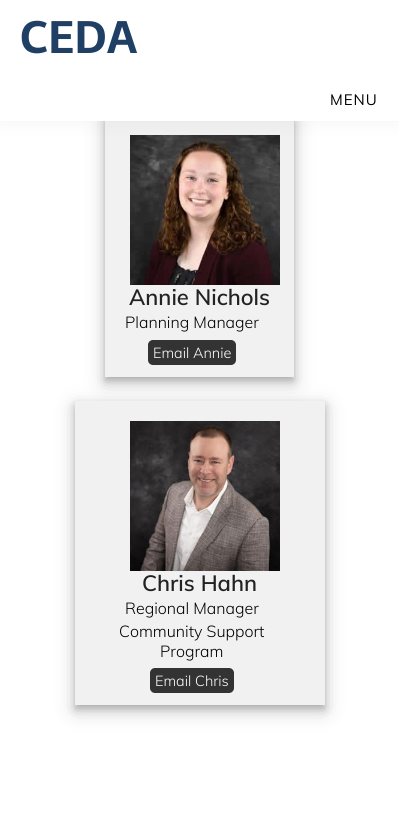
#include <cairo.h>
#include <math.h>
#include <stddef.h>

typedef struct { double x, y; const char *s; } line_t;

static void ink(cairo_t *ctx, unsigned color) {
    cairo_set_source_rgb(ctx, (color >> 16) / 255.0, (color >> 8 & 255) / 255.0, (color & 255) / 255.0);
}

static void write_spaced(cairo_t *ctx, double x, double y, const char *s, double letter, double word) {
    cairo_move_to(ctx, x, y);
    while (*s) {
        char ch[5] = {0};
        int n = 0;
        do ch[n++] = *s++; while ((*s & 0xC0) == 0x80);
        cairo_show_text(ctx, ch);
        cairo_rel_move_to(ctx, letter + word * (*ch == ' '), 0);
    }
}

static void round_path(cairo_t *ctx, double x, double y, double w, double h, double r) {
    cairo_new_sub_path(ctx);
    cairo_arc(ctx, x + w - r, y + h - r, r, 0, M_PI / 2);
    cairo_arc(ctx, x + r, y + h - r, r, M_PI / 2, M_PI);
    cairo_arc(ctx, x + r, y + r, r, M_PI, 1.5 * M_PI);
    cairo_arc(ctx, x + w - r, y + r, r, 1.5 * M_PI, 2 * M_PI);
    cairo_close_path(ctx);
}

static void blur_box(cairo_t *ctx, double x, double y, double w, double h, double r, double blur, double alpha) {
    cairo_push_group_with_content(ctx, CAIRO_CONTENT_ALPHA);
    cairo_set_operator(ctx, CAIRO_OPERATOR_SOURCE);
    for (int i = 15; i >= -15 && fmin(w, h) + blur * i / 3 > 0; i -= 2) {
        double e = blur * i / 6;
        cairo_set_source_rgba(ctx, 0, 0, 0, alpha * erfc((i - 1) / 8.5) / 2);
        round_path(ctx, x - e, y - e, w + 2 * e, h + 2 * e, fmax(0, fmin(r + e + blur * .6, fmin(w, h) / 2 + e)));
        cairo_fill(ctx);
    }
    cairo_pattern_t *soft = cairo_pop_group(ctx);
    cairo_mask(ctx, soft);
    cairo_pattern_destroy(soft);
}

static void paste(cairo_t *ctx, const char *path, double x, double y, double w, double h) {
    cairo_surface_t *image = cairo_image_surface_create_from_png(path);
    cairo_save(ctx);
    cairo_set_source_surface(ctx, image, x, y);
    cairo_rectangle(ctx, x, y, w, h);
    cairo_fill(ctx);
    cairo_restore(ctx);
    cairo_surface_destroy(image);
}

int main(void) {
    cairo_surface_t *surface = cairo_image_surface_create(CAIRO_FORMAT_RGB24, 399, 818);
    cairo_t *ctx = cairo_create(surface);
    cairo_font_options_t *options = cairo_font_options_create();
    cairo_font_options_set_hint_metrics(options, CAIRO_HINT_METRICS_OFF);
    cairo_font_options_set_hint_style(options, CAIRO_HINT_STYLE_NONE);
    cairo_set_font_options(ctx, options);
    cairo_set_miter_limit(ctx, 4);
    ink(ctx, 0xFFFFFF);
    cairo_paint(ctx);
    ink(ctx, 0x000000);
    blur_box(ctx, 105, 121, 189, 262, 0, 10, 0.19);
    blur_box(ctx, 105, 119, 189, 262, 0, 4, 0.2);
    ink(ctx, 0xF1F1F1);
    cairo_rectangle(ctx, 105, 121, 189, 256);
    cairo_fill(ctx);
    paste(ctx, "media/1.png", 130, 135, 150, 150);
    ink(ctx, 0x000000);
    blur_box(ctx, 0, 0, 399, 121, 0, 10, 0.05);
    ink(ctx, 0xFFFFFF);
    cairo_rectangle(ctx, 0, 0, 399, 121);
    cairo_fill(ctx);
    cairo_select_font_face(ctx, "Sarala", CAIRO_FONT_SLANT_NORMAL, CAIRO_FONT_WEIGHT_BOLD);
    cairo_set_font_size(ctx, 45);
    ink(ctx, 0x203F64);
    cairo_move_to(ctx, 20, 53);
    cairo_show_text(ctx, "CEDA");
    cairo_select_font_face(ctx, "Muli", CAIRO_FONT_SLANT_NORMAL, CAIRO_FONT_WEIGHT_NORMAL);
    cairo_set_font_size(ctx, 15);
    ink(ctx, 0x000000);
    write_spaced(ctx, 330, 105, "MENU", 1, 0);
    cairo_select_font_face(ctx, "Muli SemiBold", CAIRO_FONT_SLANT_NORMAL, CAIRO_FONT_WEIGHT_NORMAL);
    cairo_set_font_size(ctx, 22);
    ink(ctx, 0x222222);
    cairo_move_to(ctx, 129, 305);
    cairo_show_text(ctx, "Annie Nichols");
    cairo_select_font_face(ctx, "Muli Light", CAIRO_FONT_SLANT_NORMAL, CAIRO_FONT_WEIGHT_NORMAL);
    cairo_set_font_size(ctx, 16);
    ink(ctx, 0x000000);
    cairo_move_to(ctx, 125, 328);
    cairo_show_text(ctx, "Planning Manager");
    ink(ctx, 0x333333);
    round_path(ctx, 148, 340, 88, 25, 5);
    cairo_fill(ctx);
    cairo_set_font_size(ctx, 14.5);
    ink(ctx, 0xFFFFFF);
    cairo_move_to(ctx, 153, 358);
    cairo_show_text(ctx, "Email Annie");
    ink(ctx, 0x000000);
    blur_box(ctx, 75, 407, 250, 304, 0, 10, 0.19);
    blur_box(ctx, 75, 405, 250, 304, 0, 4, 0.2);
    ink(ctx, 0xF1F1F1);
    cairo_rectangle(ctx, 75, 401, 250, 304);
    cairo_fill(ctx);
    paste(ctx, "media/2.png", 130, 421, 150, 150);
    cairo_select_font_face(ctx, "Muli SemiBold", CAIRO_FONT_SLANT_NORMAL, CAIRO_FONT_WEIGHT_NORMAL);
    cairo_set_font_size(ctx, 22);
    ink(ctx, 0x222222);
    cairo_move_to(ctx, 142, 591);
    cairo_show_text(ctx, "Chris Hahn");
    cairo_select_font_face(ctx, "Muli Light", CAIRO_FONT_SLANT_NORMAL, CAIRO_FONT_WEIGHT_NORMAL);
    cairo_set_font_size(ctx, 16);
    ink(ctx, 0x000000);
    {
        static const line_t items[] = {
            {125, 614, "Regional Manager"},
            {119, 637, "Community Support"},
            {160, 657, "Program"},
        };
        for (size_t i = 0; i < sizeof items / sizeof *items; i++) {
            cairo_move_to(ctx, items[i].x, items[i].y);
            cairo_show_text(ctx, items[i].s);
        }
    }
    ink(ctx, 0x333333);
    round_path(ctx, 150, 668, 84, 25, 5);
    cairo_fill(ctx);
    cairo_set_font_size(ctx, 14.5);
    ink(ctx, 0xFFFFFF);
    cairo_move_to(ctx, 155, 686);
    cairo_show_text(ctx, "Email Chris");
    cairo_surface_write_to_png(surface, "image.png");
    cairo_font_options_destroy(options);
    cairo_destroy(ctx);
    cairo_surface_destroy(surface);
    return 0;
}
